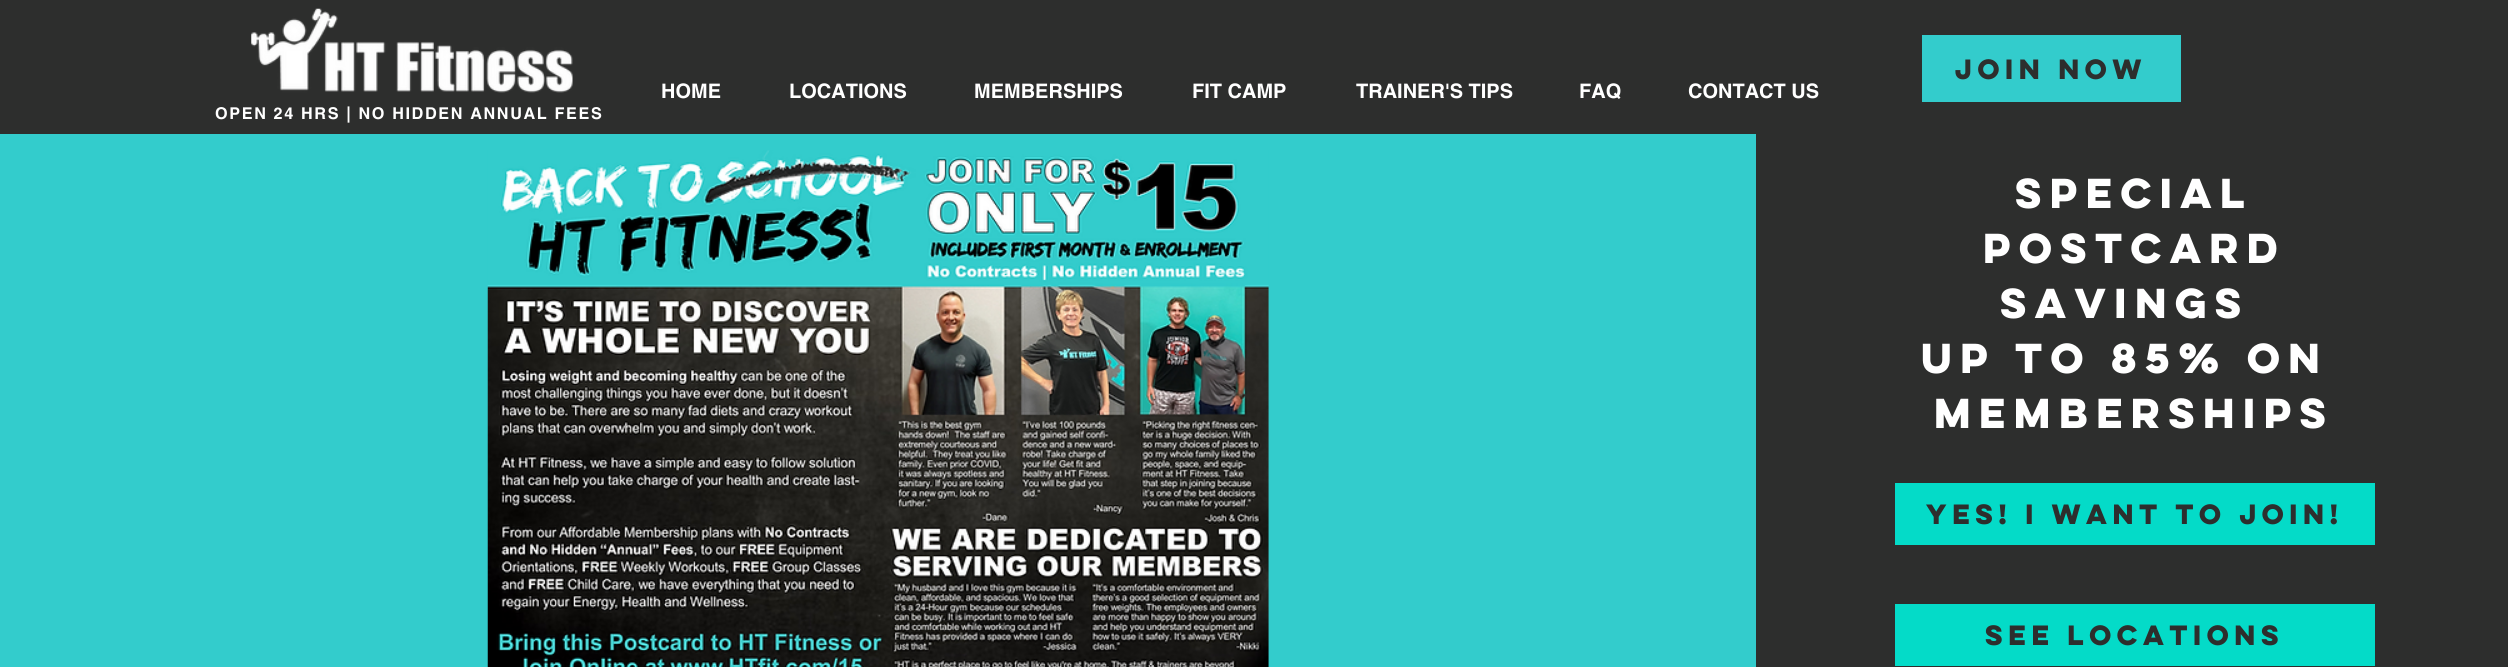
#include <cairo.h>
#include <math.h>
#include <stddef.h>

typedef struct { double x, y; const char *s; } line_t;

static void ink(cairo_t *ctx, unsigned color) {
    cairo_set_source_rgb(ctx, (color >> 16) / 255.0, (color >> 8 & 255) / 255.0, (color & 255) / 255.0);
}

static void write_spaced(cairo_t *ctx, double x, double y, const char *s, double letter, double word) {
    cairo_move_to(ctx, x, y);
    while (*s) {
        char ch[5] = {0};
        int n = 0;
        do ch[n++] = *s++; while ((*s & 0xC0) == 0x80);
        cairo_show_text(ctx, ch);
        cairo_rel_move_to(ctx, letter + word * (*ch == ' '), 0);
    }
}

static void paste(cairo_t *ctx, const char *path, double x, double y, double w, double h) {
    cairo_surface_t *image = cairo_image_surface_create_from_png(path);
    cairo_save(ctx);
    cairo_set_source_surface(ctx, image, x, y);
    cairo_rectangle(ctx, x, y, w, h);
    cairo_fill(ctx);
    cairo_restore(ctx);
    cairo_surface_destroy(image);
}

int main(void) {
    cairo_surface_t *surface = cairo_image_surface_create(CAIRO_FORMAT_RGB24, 2508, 667);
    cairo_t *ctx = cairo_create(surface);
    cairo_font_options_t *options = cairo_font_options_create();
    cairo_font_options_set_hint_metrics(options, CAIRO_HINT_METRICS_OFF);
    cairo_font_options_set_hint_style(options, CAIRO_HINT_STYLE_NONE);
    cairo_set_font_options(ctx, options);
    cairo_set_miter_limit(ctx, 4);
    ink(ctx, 0x33CCCC);
    cairo_paint(ctx);
    ink(ctx, 0x2D2E2D);
    cairo_rectangle(ctx, 0, 0, 2508, 134);
    cairo_fill(ctx);
    paste(ctx, "media/1.png", 251, 8, 322, 85);
    ink(ctx, 0x33CCCC);
    cairo_rectangle(ctx, 1922, 35, 259, 67);
    cairo_fill(ctx);
    cairo_select_font_face(ctx, "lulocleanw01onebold", CAIRO_FONT_SLANT_NORMAL, CAIRO_FONT_WEIGHT_BOLD);
    cairo_set_font_size(ctx, 25);
    ink(ctx, 0x2D2E2D);
    cairo_move_to(ctx, 1955, 79);
    cairo_show_text(ctx, "JOIN NOW");
    cairo_select_font_face(ctx, "helvetica", CAIRO_FONT_SLANT_NORMAL, CAIRO_FONT_WEIGHT_BOLD);
    cairo_set_font_size(ctx, 20);
    ink(ctx, 0xFFFFFF);
    {
        static const line_t items[] = {
            {661, 98, "HOME"},
            {789, 98, "LOCATIONS"},
            {974, 98, "MEMBERSHIPS"},
            {1192, 98, "FIT CAMP"},
            {1356, 98, "TRAINER'S TIPS"},
            {1579, 98, "FAQ"},
            {1688, 98, "CONTACT US"},
        };
        for (size_t i = 0; i < sizeof items / sizeof *items; i++) {
            cairo_move_to(ctx, items[i].x, items[i].y);
            cairo_show_text(ctx, items[i].s);
        }
    }
    cairo_set_font_size(ctx, 16.25);
    write_spaced(ctx, 215, 119, "OPEN 24 HRS | NO HIDDEN ANNUAL FEES", 1.6, 0);
    paste(ctx, "media/2.png", 487, 150, 782, 517);
    ink(ctx, 0x2D2E2D);
    cairo_rectangle(ctx, 1756, 134, 752, 533);
    cairo_fill(ctx);
    cairo_select_font_face(ctx, "lulocleanw01onebold", CAIRO_FONT_SLANT_NORMAL, CAIRO_FONT_WEIGHT_BOLD);
    cairo_set_font_size(ctx, 37.5);
    ink(ctx, 0xFFFFFF);
    {
        static const line_t items[] = {
            {2015, 208, "special"},
            {1983, 263, "postcard"},
            {2000, 318, "savings"},
            {1921, 373, "up to 85% on"},
            {1934, 428, "memberships"},
        };
        for (size_t i = 0; i < sizeof items / sizeof *items; i++) {
            cairo_move_to(ctx, items[i].x, items[i].y);
            cairo_show_text(ctx, items[i].s);
        }
    }
    ink(ctx, 0x04DBC8);
    cairo_rectangle(ctx, 1895, 483, 480, 62);
    cairo_fill(ctx);
    cairo_set_font_size(ctx, 25);
    ink(ctx, 0x2D2E2D);
    cairo_move_to(ctx, 1926, 524);
    cairo_show_text(ctx, "YES! I WANT TO JOIN!");
    ink(ctx, 0x04DBC8);
    cairo_rectangle(ctx, 1895, 604, 480, 62);
    cairo_fill(ctx);
    ink(ctx, 0x2D2E2D);
    cairo_move_to(ctx, 1985, 645);
    cairo_show_text(ctx, "see locations");
    cairo_surface_write_to_png(surface, "image.png");
    cairo_font_options_destroy(options);
    cairo_destroy(ctx);
    cairo_surface_destroy(surface);
    return 0;
}
